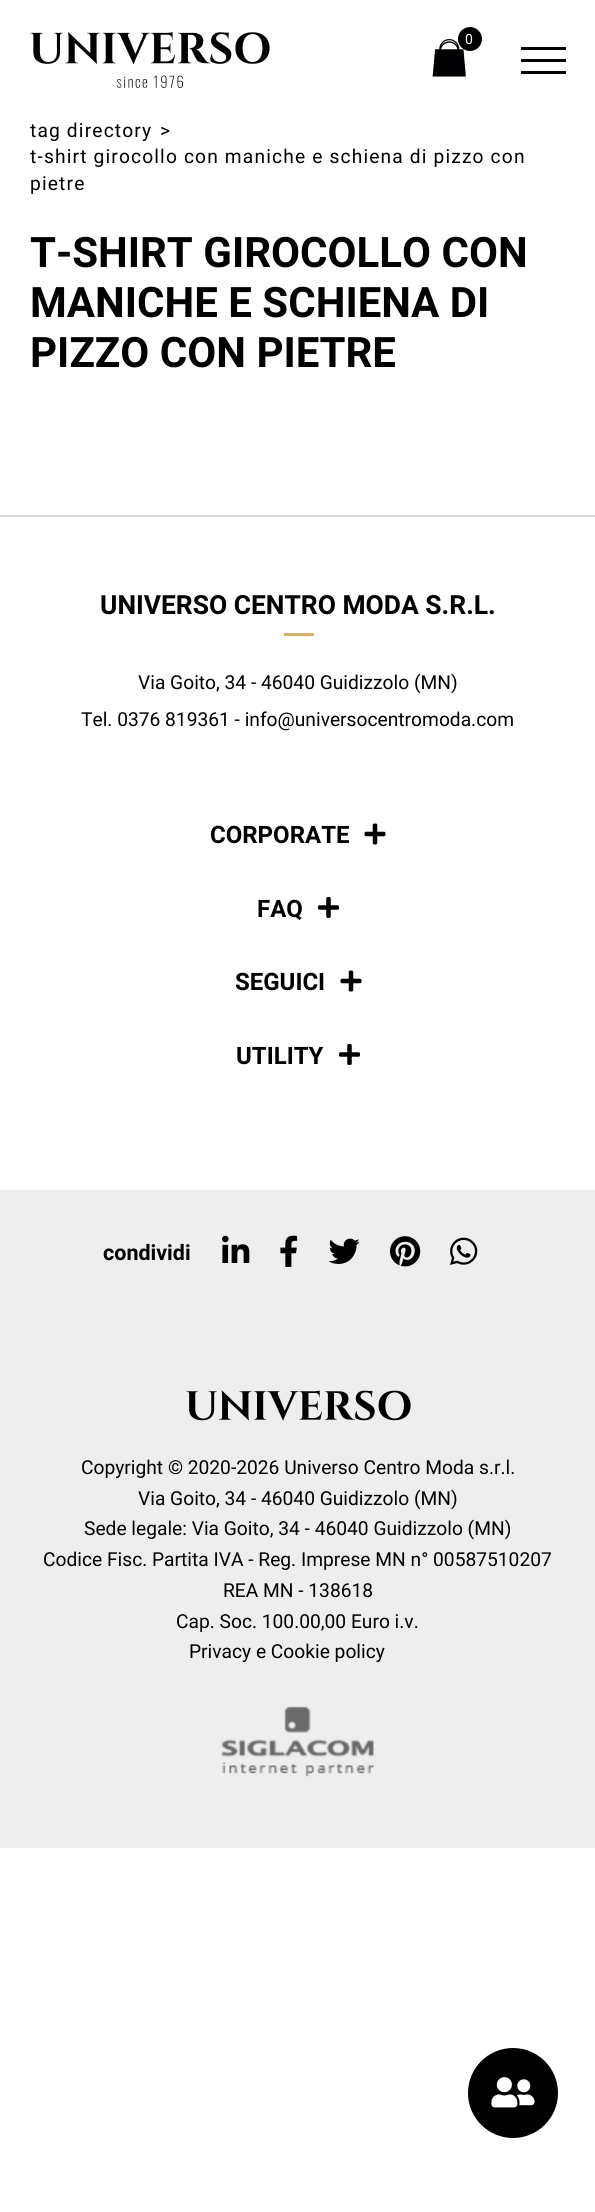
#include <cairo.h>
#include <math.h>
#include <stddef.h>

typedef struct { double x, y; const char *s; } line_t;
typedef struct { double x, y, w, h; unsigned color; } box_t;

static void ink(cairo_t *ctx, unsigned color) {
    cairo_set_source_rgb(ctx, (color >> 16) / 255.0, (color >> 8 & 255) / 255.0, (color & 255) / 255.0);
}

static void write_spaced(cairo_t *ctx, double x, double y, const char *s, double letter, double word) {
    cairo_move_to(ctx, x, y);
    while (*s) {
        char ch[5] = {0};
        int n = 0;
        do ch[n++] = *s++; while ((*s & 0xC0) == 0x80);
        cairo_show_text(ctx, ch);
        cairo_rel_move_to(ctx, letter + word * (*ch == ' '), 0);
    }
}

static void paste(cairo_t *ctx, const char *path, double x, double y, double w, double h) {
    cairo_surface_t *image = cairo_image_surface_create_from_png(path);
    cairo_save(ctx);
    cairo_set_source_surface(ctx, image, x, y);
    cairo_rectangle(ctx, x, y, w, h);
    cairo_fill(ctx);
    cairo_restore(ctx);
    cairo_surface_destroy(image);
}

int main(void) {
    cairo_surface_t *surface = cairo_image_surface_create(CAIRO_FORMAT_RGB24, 595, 2212);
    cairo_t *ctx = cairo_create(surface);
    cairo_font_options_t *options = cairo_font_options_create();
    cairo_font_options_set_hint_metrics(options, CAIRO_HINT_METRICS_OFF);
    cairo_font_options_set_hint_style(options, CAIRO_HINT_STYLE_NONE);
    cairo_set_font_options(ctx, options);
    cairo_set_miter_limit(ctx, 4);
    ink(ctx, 0xFFFFFF);
    cairo_paint(ctx);
    paste(ctx, "media/1.png", 30, 32, 240, 56);
    paste(ctx, "media/2.png", 432, 39, 34, 38);
    ink(ctx, 0x000000);
    cairo_arc(ctx, 470, 39, 12, 0, 2 * M_PI);
    cairo_fill(ctx);
    cairo_select_font_face(ctx, "Roboto", CAIRO_FONT_SLANT_NORMAL, CAIRO_FONT_WEIGHT_NORMAL);
    cairo_set_font_size(ctx, 14);
    ink(ctx, 0xFFFFFF);
    cairo_move_to(ctx, 465, 44);
    cairo_show_text(ctx, "0");
    {
        static const box_t items[] = {
            {521, 47, 45, 3, 0x000000},
            {521, 59, 45, 3, 0x000000},
            {521, 71, 45, 3, 0x000000},
        };
        for (size_t i = 0; i < sizeof items / sizeof *items; i++) {
            ink(ctx, items[i].color);
            cairo_rectangle(ctx, items[i].x, items[i].y, items[i].w, items[i].h);
            cairo_fill(ctx);
        }
    }
    cairo_set_font_size(ctx, 19.2);
    {
        static const line_t items[] = {
            {30, 137, "tag directory"},
            {160, 137, ">"},
            {30, 163, "t-shirt girocollo con maniche e schiena di pizzo con"},
            {30, 190, "pietre"},
        };
        for (size_t i = 0; i < sizeof items / sizeof *items; i++) {
            write_spaced(ctx, items[i].x, items[i].y, items[i].s, 1.15, 0);
        }
    }
    cairo_select_font_face(ctx, "Roboto", CAIRO_FONT_SLANT_NORMAL, CAIRO_FONT_WEIGHT_BOLD);
    cairo_set_font_size(ctx, 42);
    {
        static const line_t items[] = {
            {30, 267, "T-SHIRT GIROCOLLO CON"},
            {30, 317, "MANICHE E SCHIENA DI"},
            {30, 367, "PIZZO CON PIETRE"},
        };
        for (size_t i = 0; i < sizeof items / sizeof *items; i++) {
            cairo_move_to(ctx, items[i].x, items[i].y);
            cairo_show_text(ctx, items[i].s);
        }
    }
    ink(ctx, 0xD6D6D6);
    cairo_rectangle(ctx, 0, 515, 595, 2);
    cairo_fill(ctx);
    cairo_set_font_size(ctx, 26.4);
    ink(ctx, 0x000000);
    cairo_move_to(ctx, 100, 614);
    cairo_show_text(ctx, "UNIVERSO CENTRO MODA S.R.L.");
    ink(ctx, 0xD5B26B);
    cairo_rectangle(ctx, 284, 633, 30, 3);
    cairo_fill(ctx);
    cairo_select_font_face(ctx, "Roboto", CAIRO_FONT_SLANT_NORMAL, CAIRO_FONT_WEIGHT_NORMAL);
    cairo_set_font_size(ctx, 19.2);
    ink(ctx, 0x000000);
    cairo_move_to(ctx, 138, 689);
    cairo_show_text(ctx, "Via Goito, 34 - 46040 Guidizzolo (MN)");
    cairo_move_to(ctx, 81, 726);
    cairo_show_text(ctx, "Tel. 0376 819361 - info@universocentromoda.com");
    cairo_select_font_face(ctx, "Roboto", CAIRO_FONT_SLANT_NORMAL, CAIRO_FONT_WEIGHT_BOLD);
    cairo_set_font_size(ctx, 24);
    cairo_move_to(ctx, 210, 843);
    cairo_show_text(ctx, "CORPORATE");
    paste(ctx, "media/3.png", 364, 823, 22, 22);
    cairo_move_to(ctx, 257, 917);
    cairo_show_text(ctx, "FAQ");
    paste(ctx, "media/4.png", 318, 897, 21, 21);
    cairo_move_to(ctx, 235, 990);
    cairo_show_text(ctx, "SEGUICI");
    paste(ctx, "media/3.png", 340, 970, 22, 22);
    cairo_move_to(ctx, 236, 1064);
    cairo_show_text(ctx, "UTILITY");
    paste(ctx, "media/4.png", 339, 1044, 21, 21);
    ink(ctx, 0xEEEEEE);
    cairo_rectangle(ctx, 0, 1190, 595, 658);
    cairo_fill(ctx);
    cairo_set_font_size(ctx, 21.5);
    ink(ctx, 0x000000);
    cairo_move_to(ctx, 103, 1260);
    cairo_show_text(ctx, "condividi");
    paste(ctx, "media/5.png", 222, 1235, 28, 28);
    paste(ctx, "media/6.png", 280, 1235, 18, 32);
    paste(ctx, "media/7.png", 328, 1238, 32, 26);
    paste(ctx, "media/8.png", 390, 1236, 31, 31);
    paste(ctx, "media/9.png", 450, 1237, 28, 28);
    paste(ctx, "media/10.png", 186, 1390, 225, 31);
    cairo_select_font_face(ctx, "Roboto", CAIRO_FONT_SLANT_NORMAL, CAIRO_FONT_WEIGHT_NORMAL);
    cairo_set_font_size(ctx, 19.2);
    {
        static const line_t items[] = {
            {81, 1474, "Copyright © 2020-2026 Universo Centro Moda s.r.l."},
            {138, 1505, "Via Goito, 34 - 46040 Guidizzolo (MN)"},
            {84, 1535, "Sede legale: Via Goito, 34 - 46040 Guidizzolo (MN)"},
            {43, 1566, "Codice Fisc. Partita IVA - Reg. Imprese MN n° 00587510207"},
            {223, 1597, "REA MN - 138618"},
            {176, 1628, "Cap. Soc. 100.00,00 Euro i.v."},
            {189, 1658, "Privacy e Cookie policy"},
        };
        for (size_t i = 0; i < sizeof items / sizeof *items; i++) {
            cairo_move_to(ctx, items[i].x, items[i].y);
            cairo_show_text(ctx, items[i].s);
        }
    }
    paste(ctx, "media/11.png", 221, 1706, 153, 71);
    cairo_arc(ctx, 513, 2093, 45, 0, 2 * M_PI);
    cairo_fill(ctx);
    paste(ctx, "media/12.png", 491, 2077, 44, 31);
    cairo_surface_write_to_png(surface, "image.png");
    cairo_font_options_destroy(options);
    cairo_destroy(ctx);
    cairo_surface_destroy(surface);
    return 0;
}
